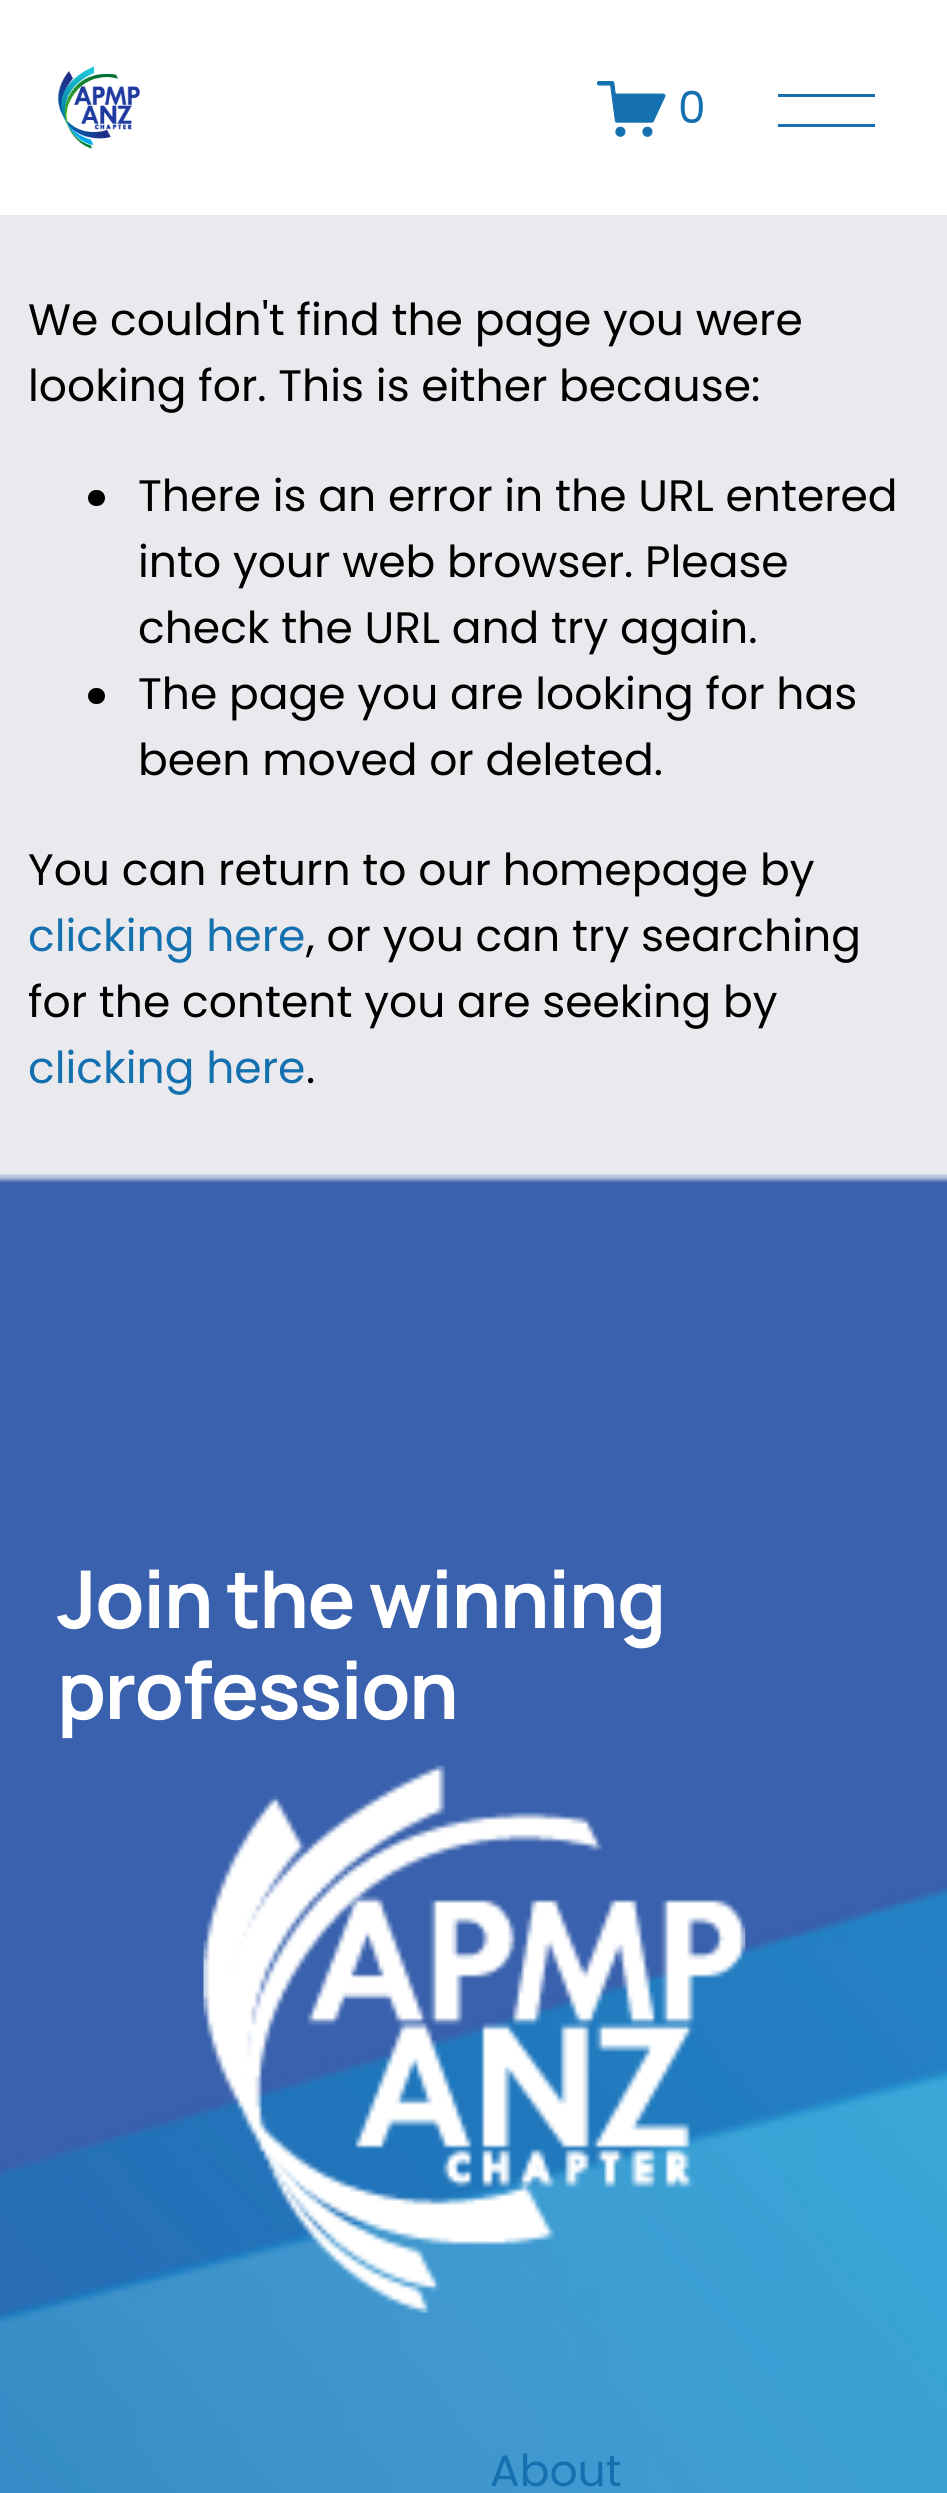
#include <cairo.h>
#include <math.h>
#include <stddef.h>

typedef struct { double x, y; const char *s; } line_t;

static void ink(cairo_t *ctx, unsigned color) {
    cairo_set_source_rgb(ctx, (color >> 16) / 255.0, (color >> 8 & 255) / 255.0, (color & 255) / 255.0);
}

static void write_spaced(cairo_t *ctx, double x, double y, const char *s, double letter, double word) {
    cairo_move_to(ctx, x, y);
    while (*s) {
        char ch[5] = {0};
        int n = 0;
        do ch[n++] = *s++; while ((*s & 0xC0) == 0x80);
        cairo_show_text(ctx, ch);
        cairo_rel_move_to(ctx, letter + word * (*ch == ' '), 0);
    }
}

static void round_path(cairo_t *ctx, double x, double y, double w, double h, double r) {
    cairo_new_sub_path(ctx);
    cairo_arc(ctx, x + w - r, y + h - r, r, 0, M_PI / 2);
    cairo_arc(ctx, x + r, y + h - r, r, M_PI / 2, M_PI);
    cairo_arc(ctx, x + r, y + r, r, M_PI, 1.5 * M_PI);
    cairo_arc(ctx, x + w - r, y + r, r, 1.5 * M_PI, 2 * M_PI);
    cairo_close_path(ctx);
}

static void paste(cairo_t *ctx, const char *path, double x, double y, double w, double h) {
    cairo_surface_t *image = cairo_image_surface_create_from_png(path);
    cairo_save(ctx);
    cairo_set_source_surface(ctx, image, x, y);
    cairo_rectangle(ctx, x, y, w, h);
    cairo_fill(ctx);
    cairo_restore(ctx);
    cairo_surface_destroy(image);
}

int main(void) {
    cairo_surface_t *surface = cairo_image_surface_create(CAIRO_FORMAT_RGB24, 947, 2493);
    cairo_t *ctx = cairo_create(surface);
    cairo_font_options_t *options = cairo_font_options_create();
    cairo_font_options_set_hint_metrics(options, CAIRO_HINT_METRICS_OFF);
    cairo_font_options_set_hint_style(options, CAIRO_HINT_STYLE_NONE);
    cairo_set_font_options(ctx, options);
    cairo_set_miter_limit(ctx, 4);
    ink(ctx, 0xEAEAEE);
    cairo_paint(ctx);
    ink(ctx, 0xFFFFFF);
    cairo_rectangle(ctx, 0, 0, 947, 215);
    cairo_fill(ctx);
    paste(ctx, "media/1.png", 57, 66, 84, 83);
    paste(ctx, "media/2.png", 597, 81, 69, 56);
    cairo_select_font_face(ctx, "Poppins", CAIRO_FONT_SLANT_NORMAL, CAIRO_FONT_WEIGHT_NORMAL);
    cairo_set_font_size(ctx, 44);
    ink(ctx, 0x1470AF);
    cairo_move_to(ctx, 678, 123);
    cairo_show_text(ctx, "0");
    cairo_rectangle(ctx, 778, 94, 97, 3);
    cairo_fill(ctx);
    cairo_rectangle(ctx, 778, 124, 97, 3);
    cairo_fill(ctx);
    ink(ctx, 0x000000);
    cairo_move_to(ctx, 28, 335);
    cairo_show_text(ctx, "We couldn't find the page you were");
    cairo_move_to(ctx, 28, 401);
    cairo_show_text(ctx, "looking for. This is either because:");
    round_path(ctx, 88, 490, 17, 16, 8);
    cairo_fill(ctx);
    {
        static const line_t items[] = {
            {138, 511, "There is an error in the URL entered"},
            {138, 577, "into your web browser. Please"},
            {138, 643, "check the URL and try again."},
        };
        for (size_t i = 0; i < sizeof items / sizeof *items; i++) {
            cairo_move_to(ctx, items[i].x, items[i].y);
            cairo_show_text(ctx, items[i].s);
        }
    }
    round_path(ctx, 88, 688, 17, 16, 8);
    cairo_fill(ctx);
    {
        static const line_t items[] = {
            {138, 709, "The page you are looking for has"},
            {138, 775, "been moved or deleted."},
            {28, 885, "You can return to our homepage by"},
        };
        for (size_t i = 0; i < sizeof items / sizeof *items; i++) {
            cairo_move_to(ctx, items[i].x, items[i].y);
            cairo_show_text(ctx, items[i].s);
        }
    }
    ink(ctx, 0x1470AF);
    cairo_move_to(ctx, 28, 951);
    cairo_show_text(ctx, "clicking here");
    ink(ctx, 0x000000);
    cairo_move_to(ctx, 306, 951);
    cairo_show_text(ctx, ", or you can try searching");
    cairo_move_to(ctx, 28, 1017);
    cairo_show_text(ctx, "for the content you are seeking by");
    ink(ctx, 0x1470AF);
    cairo_move_to(ctx, 28, 1083);
    cairo_show_text(ctx, "clicking here");
    ink(ctx, 0x000000);
    cairo_move_to(ctx, 306, 1083);
    cairo_show_text(ctx, ".");
    paste(ctx, "media/3.png", 0, 1174, 947, 1319);
    cairo_select_font_face(ctx, "Manrope", CAIRO_FONT_SLANT_NORMAL, CAIRO_FONT_WEIGHT_BOLD);
    cairo_set_font_size(ctx, 79.75);
    ink(ctx, 0xFFFFFF);
    write_spaced(ctx, 57, 1628, "Join the winning", -1.6, 0);
    write_spaced(ctx, 57, 1719, "profession", -1.6, 0);
    paste(ctx, "media/4.png", 203, 1765, 543, 548);
    cairo_select_font_face(ctx, "Poppins", CAIRO_FONT_SLANT_NORMAL, CAIRO_FONT_WEIGHT_NORMAL);
    cairo_set_font_size(ctx, 44);
    ink(ctx, 0x1470AF);
    cairo_move_to(ctx, 490, 2486);
    cairo_show_text(ctx, "About");
    cairo_surface_write_to_png(surface, "image.png");
    cairo_font_options_destroy(options);
    cairo_destroy(ctx);
    cairo_surface_destroy(surface);
    return 0;
}
